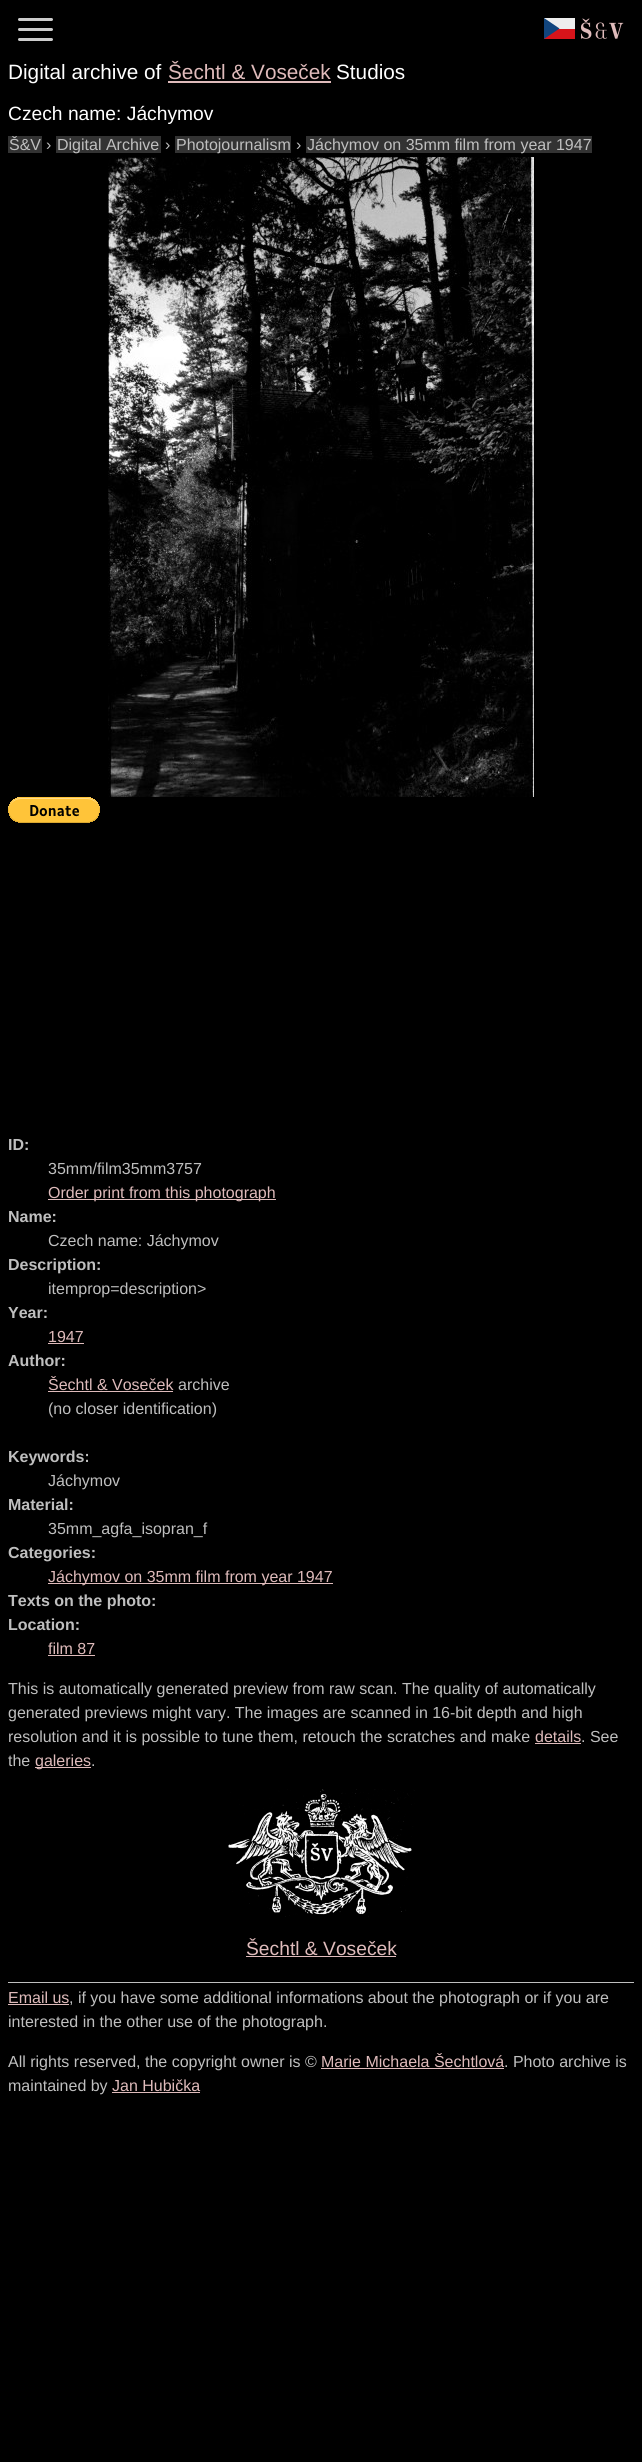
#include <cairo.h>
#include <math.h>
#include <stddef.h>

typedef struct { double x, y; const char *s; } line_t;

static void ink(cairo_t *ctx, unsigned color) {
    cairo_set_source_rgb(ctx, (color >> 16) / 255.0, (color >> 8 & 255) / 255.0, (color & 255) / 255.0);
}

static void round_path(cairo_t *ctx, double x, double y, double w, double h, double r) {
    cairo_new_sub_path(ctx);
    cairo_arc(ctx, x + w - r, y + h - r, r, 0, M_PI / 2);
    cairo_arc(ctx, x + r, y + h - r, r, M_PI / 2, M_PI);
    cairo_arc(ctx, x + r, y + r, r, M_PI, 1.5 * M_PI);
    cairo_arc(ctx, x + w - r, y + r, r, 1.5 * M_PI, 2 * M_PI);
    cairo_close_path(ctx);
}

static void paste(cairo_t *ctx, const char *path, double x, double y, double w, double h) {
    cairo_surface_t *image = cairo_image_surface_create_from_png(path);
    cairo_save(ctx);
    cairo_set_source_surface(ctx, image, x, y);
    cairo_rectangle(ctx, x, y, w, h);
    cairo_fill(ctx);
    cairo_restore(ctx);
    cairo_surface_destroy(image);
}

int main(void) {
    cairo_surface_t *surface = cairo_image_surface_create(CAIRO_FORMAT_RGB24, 642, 2462);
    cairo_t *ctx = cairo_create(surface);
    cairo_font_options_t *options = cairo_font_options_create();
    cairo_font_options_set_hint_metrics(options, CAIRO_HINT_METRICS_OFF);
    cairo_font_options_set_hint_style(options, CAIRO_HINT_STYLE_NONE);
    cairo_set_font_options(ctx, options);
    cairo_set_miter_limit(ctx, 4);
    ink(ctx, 0x000000);
    cairo_paint(ctx);
    ink(ctx, 0xCDCDCD);
    round_path(ctx, 18, 18, 35, 3, 1.5);
    cairo_fill(ctx);
    ink(ctx, 0xD7141A);
    cairo_rectangle(ctx, 544, 29, 31, 10);
    cairo_fill(ctx);
    ink(ctx, 0xEEEEEE);
    cairo_rectangle(ctx, 544, 18, 31, 11);
    cairo_fill(ctx);
    ink(ctx, 0x11457E);
    cairo_new_path(ctx);
    cairo_move_to(ctx, 559.5, 28.5);
    cairo_line_to(ctx, 544, 18);
    cairo_line_to(ctx, 544, 39);
    cairo_close_path(ctx);
    cairo_fill(ctx);
    paste(ctx, "media/1.png", 580, 18, 44, 21);
    ink(ctx, 0xCDCDCD);
    round_path(ctx, 18, 28, 35, 3, 1.5);
    cairo_fill(ctx);
    round_path(ctx, 18, 38, 35, 3, 1.5);
    cairo_fill(ctx);
    cairo_select_font_face(ctx, "Liberation Sans", CAIRO_FONT_SLANT_NORMAL, CAIRO_FONT_WEIGHT_NORMAL);
    cairo_set_font_size(ctx, 20.75);
    ink(ctx, 0xFFFFFF);
    cairo_move_to(ctx, 8, 79);
    cairo_show_text(ctx, "Digital archive of");
    ink(ctx, 0xDFBBBB);
    cairo_move_to(ctx, 168, 79);
    cairo_show_text(ctx, "Šechtl & Voseček");
    cairo_rectangle(ctx, 168, 81, 163, 2);
    cairo_fill(ctx);
    ink(ctx, 0xFFFFFF);
    cairo_move_to(ctx, 336, 79);
    cairo_show_text(ctx, "Studios");
    cairo_set_font_size(ctx, 19.25);
    cairo_move_to(ctx, 8, 120);
    cairo_show_text(ctx, "Czech name: Jáchymov");
    ink(ctx, 0x333333);
    cairo_rectangle(ctx, 8, 136, 34, 17);
    cairo_fill(ctx);
    cairo_set_font_size(ctx, 16);
    ink(ctx, 0xBFBFBF);
    cairo_move_to(ctx, 9, 150);
    cairo_show_text(ctx, "Š&V");
    cairo_move_to(ctx, 46, 150);
    cairo_show_text(ctx, "›");
    ink(ctx, 0x333333);
    cairo_rectangle(ctx, 56, 136, 105, 17);
    cairo_fill(ctx);
    ink(ctx, 0xBFBFBF);
    cairo_move_to(ctx, 57, 150);
    cairo_show_text(ctx, "Digital Archive");
    cairo_move_to(ctx, 165, 150);
    cairo_show_text(ctx, "›");
    ink(ctx, 0x333333);
    cairo_rectangle(ctx, 175, 136, 116, 17);
    cairo_fill(ctx);
    ink(ctx, 0xBFBFBF);
    cairo_move_to(ctx, 176, 150);
    cairo_show_text(ctx, "Photojournalism");
    cairo_move_to(ctx, 296, 150);
    cairo_show_text(ctx, "›");
    ink(ctx, 0x333333);
    cairo_rectangle(ctx, 306, 136, 286, 17);
    cairo_fill(ctx);
    ink(ctx, 0xBFBFBF);
    cairo_move_to(ctx, 307, 150);
    cairo_show_text(ctx, "Jáchymov on 35mm film from year 1947");
    paste(ctx, "media/2.png", 108, 157, 426, 640);
    paste(ctx, "media/3.png", 8, 797, 92, 26);
    cairo_select_font_face(ctx, "Liberation Sans", CAIRO_FONT_SLANT_NORMAL, CAIRO_FONT_WEIGHT_BOLD);
    cairo_move_to(ctx, 8, 1150);
    cairo_show_text(ctx, "ID:");
    cairo_select_font_face(ctx, "Liberation Sans", CAIRO_FONT_SLANT_NORMAL, CAIRO_FONT_WEIGHT_NORMAL);
    cairo_move_to(ctx, 48, 1174);
    cairo_show_text(ctx, "35mm/film35mm3757");
    ink(ctx, 0xDFBBBB);
    cairo_rectangle(ctx, 48, 1199, 228, 1);
    cairo_fill(ctx);
    cairo_move_to(ctx, 48, 1198);
    cairo_show_text(ctx, "Order print from this photograph");
    cairo_select_font_face(ctx, "Liberation Sans", CAIRO_FONT_SLANT_NORMAL, CAIRO_FONT_WEIGHT_BOLD);
    ink(ctx, 0xBFBFBF);
    cairo_move_to(ctx, 8, 1222);
    cairo_show_text(ctx, "Name:");
    cairo_select_font_face(ctx, "Liberation Sans", CAIRO_FONT_SLANT_NORMAL, CAIRO_FONT_WEIGHT_NORMAL);
    cairo_move_to(ctx, 48, 1246);
    cairo_show_text(ctx, "Czech name: Jáchymov");
    cairo_select_font_face(ctx, "Liberation Sans", CAIRO_FONT_SLANT_NORMAL, CAIRO_FONT_WEIGHT_BOLD);
    cairo_move_to(ctx, 8, 1270);
    cairo_show_text(ctx, "Description:");
    cairo_select_font_face(ctx, "Liberation Sans", CAIRO_FONT_SLANT_NORMAL, CAIRO_FONT_WEIGHT_NORMAL);
    cairo_move_to(ctx, 48, 1294);
    cairo_show_text(ctx, "itemprop=description>");
    cairo_select_font_face(ctx, "Liberation Sans", CAIRO_FONT_SLANT_NORMAL, CAIRO_FONT_WEIGHT_BOLD);
    cairo_move_to(ctx, 8, 1318);
    cairo_show_text(ctx, "Year:");
    cairo_select_font_face(ctx, "Liberation Sans", CAIRO_FONT_SLANT_NORMAL, CAIRO_FONT_WEIGHT_NORMAL);
    ink(ctx, 0xDFBBBB);
    cairo_move_to(ctx, 48, 1342);
    cairo_show_text(ctx, "1947");
    cairo_rectangle(ctx, 48, 1343, 36, 1);
    cairo_fill(ctx);
    cairo_select_font_face(ctx, "Liberation Sans", CAIRO_FONT_SLANT_NORMAL, CAIRO_FONT_WEIGHT_BOLD);
    ink(ctx, 0xBFBFBF);
    cairo_move_to(ctx, 8, 1366);
    cairo_show_text(ctx, "Author:");
    cairo_select_font_face(ctx, "Liberation Sans", CAIRO_FONT_SLANT_NORMAL, CAIRO_FONT_WEIGHT_NORMAL);
    ink(ctx, 0xDFBBBB);
    cairo_move_to(ctx, 48, 1390);
    cairo_show_text(ctx, "Šechtl & Voseček");
    cairo_rectangle(ctx, 48, 1391, 125, 1);
    cairo_fill(ctx);
    ink(ctx, 0xBFBFBF);
    cairo_move_to(ctx, 178, 1390);
    cairo_show_text(ctx, "archive");
    cairo_move_to(ctx, 48, 1414);
    cairo_show_text(ctx, "(no closer identification)");
    cairo_select_font_face(ctx, "Liberation Sans", CAIRO_FONT_SLANT_NORMAL, CAIRO_FONT_WEIGHT_BOLD);
    cairo_move_to(ctx, 8, 1462);
    cairo_show_text(ctx, "Keywords:");
    cairo_select_font_face(ctx, "Liberation Sans", CAIRO_FONT_SLANT_NORMAL, CAIRO_FONT_WEIGHT_NORMAL);
    cairo_move_to(ctx, 48, 1486);
    cairo_show_text(ctx, "Jáchymov");
    cairo_select_font_face(ctx, "Liberation Sans", CAIRO_FONT_SLANT_NORMAL, CAIRO_FONT_WEIGHT_BOLD);
    cairo_move_to(ctx, 8, 1510);
    cairo_show_text(ctx, "Material:");
    cairo_select_font_face(ctx, "Liberation Sans", CAIRO_FONT_SLANT_NORMAL, CAIRO_FONT_WEIGHT_NORMAL);
    cairo_move_to(ctx, 48, 1534);
    cairo_show_text(ctx, "35mm_agfa_isopran_f");
    cairo_select_font_face(ctx, "Liberation Sans", CAIRO_FONT_SLANT_NORMAL, CAIRO_FONT_WEIGHT_BOLD);
    cairo_move_to(ctx, 8, 1558);
    cairo_show_text(ctx, "Categories:");
    ink(ctx, 0xDFBBBB);
    cairo_rectangle(ctx, 48, 1583, 285, 1);
    cairo_fill(ctx);
    cairo_select_font_face(ctx, "Liberation Sans", CAIRO_FONT_SLANT_NORMAL, CAIRO_FONT_WEIGHT_NORMAL);
    cairo_move_to(ctx, 48, 1582);
    cairo_show_text(ctx, "Jáchymov on 35mm film from year 1947");
    cairo_select_font_face(ctx, "Liberation Sans", CAIRO_FONT_SLANT_NORMAL, CAIRO_FONT_WEIGHT_BOLD);
    ink(ctx, 0xBFBFBF);
    cairo_move_to(ctx, 8, 1606);
    cairo_show_text(ctx, "Texts on the photo:");
    cairo_move_to(ctx, 8, 1630);
    cairo_show_text(ctx, "Location:");
    cairo_select_font_face(ctx, "Liberation Sans", CAIRO_FONT_SLANT_NORMAL, CAIRO_FONT_WEIGHT_NORMAL);
    ink(ctx, 0xDFBBBB);
    cairo_move_to(ctx, 48, 1654);
    cairo_show_text(ctx, "film 87");
    cairo_rectangle(ctx, 48, 1655, 47, 1);
    cairo_fill(ctx);
    ink(ctx, 0xBFBFBF);
    {
        static const line_t items[] = {
            {8, 1694, "This is automatically generated preview from raw scan. The quality of automatically"},
            {8, 1718, "generated previews might vary. The images are scanned in 16-bit depth and high"},
            {8, 1742, "resolution and it is possible to tune them, retouch the scratches and make"},
        };
        for (size_t i = 0; i < sizeof items / sizeof *items; i++) {
            cairo_move_to(ctx, items[i].x, items[i].y);
            cairo_show_text(ctx, items[i].s);
        }
    }
    ink(ctx, 0xDFBBBB);
    cairo_move_to(ctx, 535, 1742);
    cairo_show_text(ctx, "details");
    cairo_rectangle(ctx, 535, 1743, 46, 1);
    cairo_fill(ctx);
    ink(ctx, 0xBFBFBF);
    cairo_move_to(ctx, 581, 1742);
    cairo_show_text(ctx, ". See");
    cairo_move_to(ctx, 8, 1766);
    cairo_show_text(ctx, "the");
    ink(ctx, 0xDFBBBB);
    cairo_rectangle(ctx, 35, 1767, 56, 1);
    cairo_fill(ctx);
    cairo_move_to(ctx, 35, 1766);
    cairo_show_text(ctx, "galeries");
    ink(ctx, 0xBFBFBF);
    cairo_move_to(ctx, 91, 1766);
    cairo_show_text(ctx, ".");
    paste(ctx, "media/4.png", 228, 1789, 187, 128);
    cairo_set_font_size(ctx, 19.25);
    ink(ctx, 0xDFBBBB);
    cairo_move_to(ctx, 246, 1955);
    cairo_show_text(ctx, "Šechtl & Voseček");
    cairo_rectangle(ctx, 246, 1956, 150, 1);
    cairo_fill(ctx);
    ink(ctx, 0xBFBFBF);
    cairo_rectangle(ctx, 8, 1982, 626, 1);
    cairo_fill(ctx);
    cairo_set_font_size(ctx, 16);
    ink(ctx, 0xDFBBBB);
    cairo_move_to(ctx, 8, 2003);
    cairo_show_text(ctx, "Email us");
    cairo_rectangle(ctx, 8, 2004, 61, 1);
    cairo_fill(ctx);
    ink(ctx, 0xBFBFBF);
    {
        static const line_t items[] = {
            {69, 2003, ", if you have some additional informations about the photograph or if you are"},
            {8, 2027, "interested in the other use of the photograph."},
            {8, 2067, "All rights reserved, the copyright owner is ©"},
        };
        for (size_t i = 0; i < sizeof items / sizeof *items; i++) {
            cairo_move_to(ctx, items[i].x, items[i].y);
            cairo_show_text(ctx, items[i].s);
        }
    }
    ink(ctx, 0xDFBBBB);
    cairo_move_to(ctx, 321, 2067);
    cairo_show_text(ctx, "Marie Michaela Šechtlová");
    cairo_rectangle(ctx, 321, 2068, 183, 1);
    cairo_fill(ctx);
    ink(ctx, 0xBFBFBF);
    cairo_move_to(ctx, 504, 2067);
    cairo_show_text(ctx, ". Photo archive is");
    cairo_move_to(ctx, 8, 2091);
    cairo_show_text(ctx, "maintained by");
    ink(ctx, 0xDFBBBB);
    cairo_move_to(ctx, 112, 2091);
    cairo_show_text(ctx, "Jan Hubička");
    cairo_rectangle(ctx, 112, 2092, 88, 1);
    cairo_fill(ctx);
    cairo_surface_write_to_png(surface, "image.png");
    cairo_font_options_destroy(options);
    cairo_destroy(ctx);
    cairo_surface_destroy(surface);
    return 0;
}
